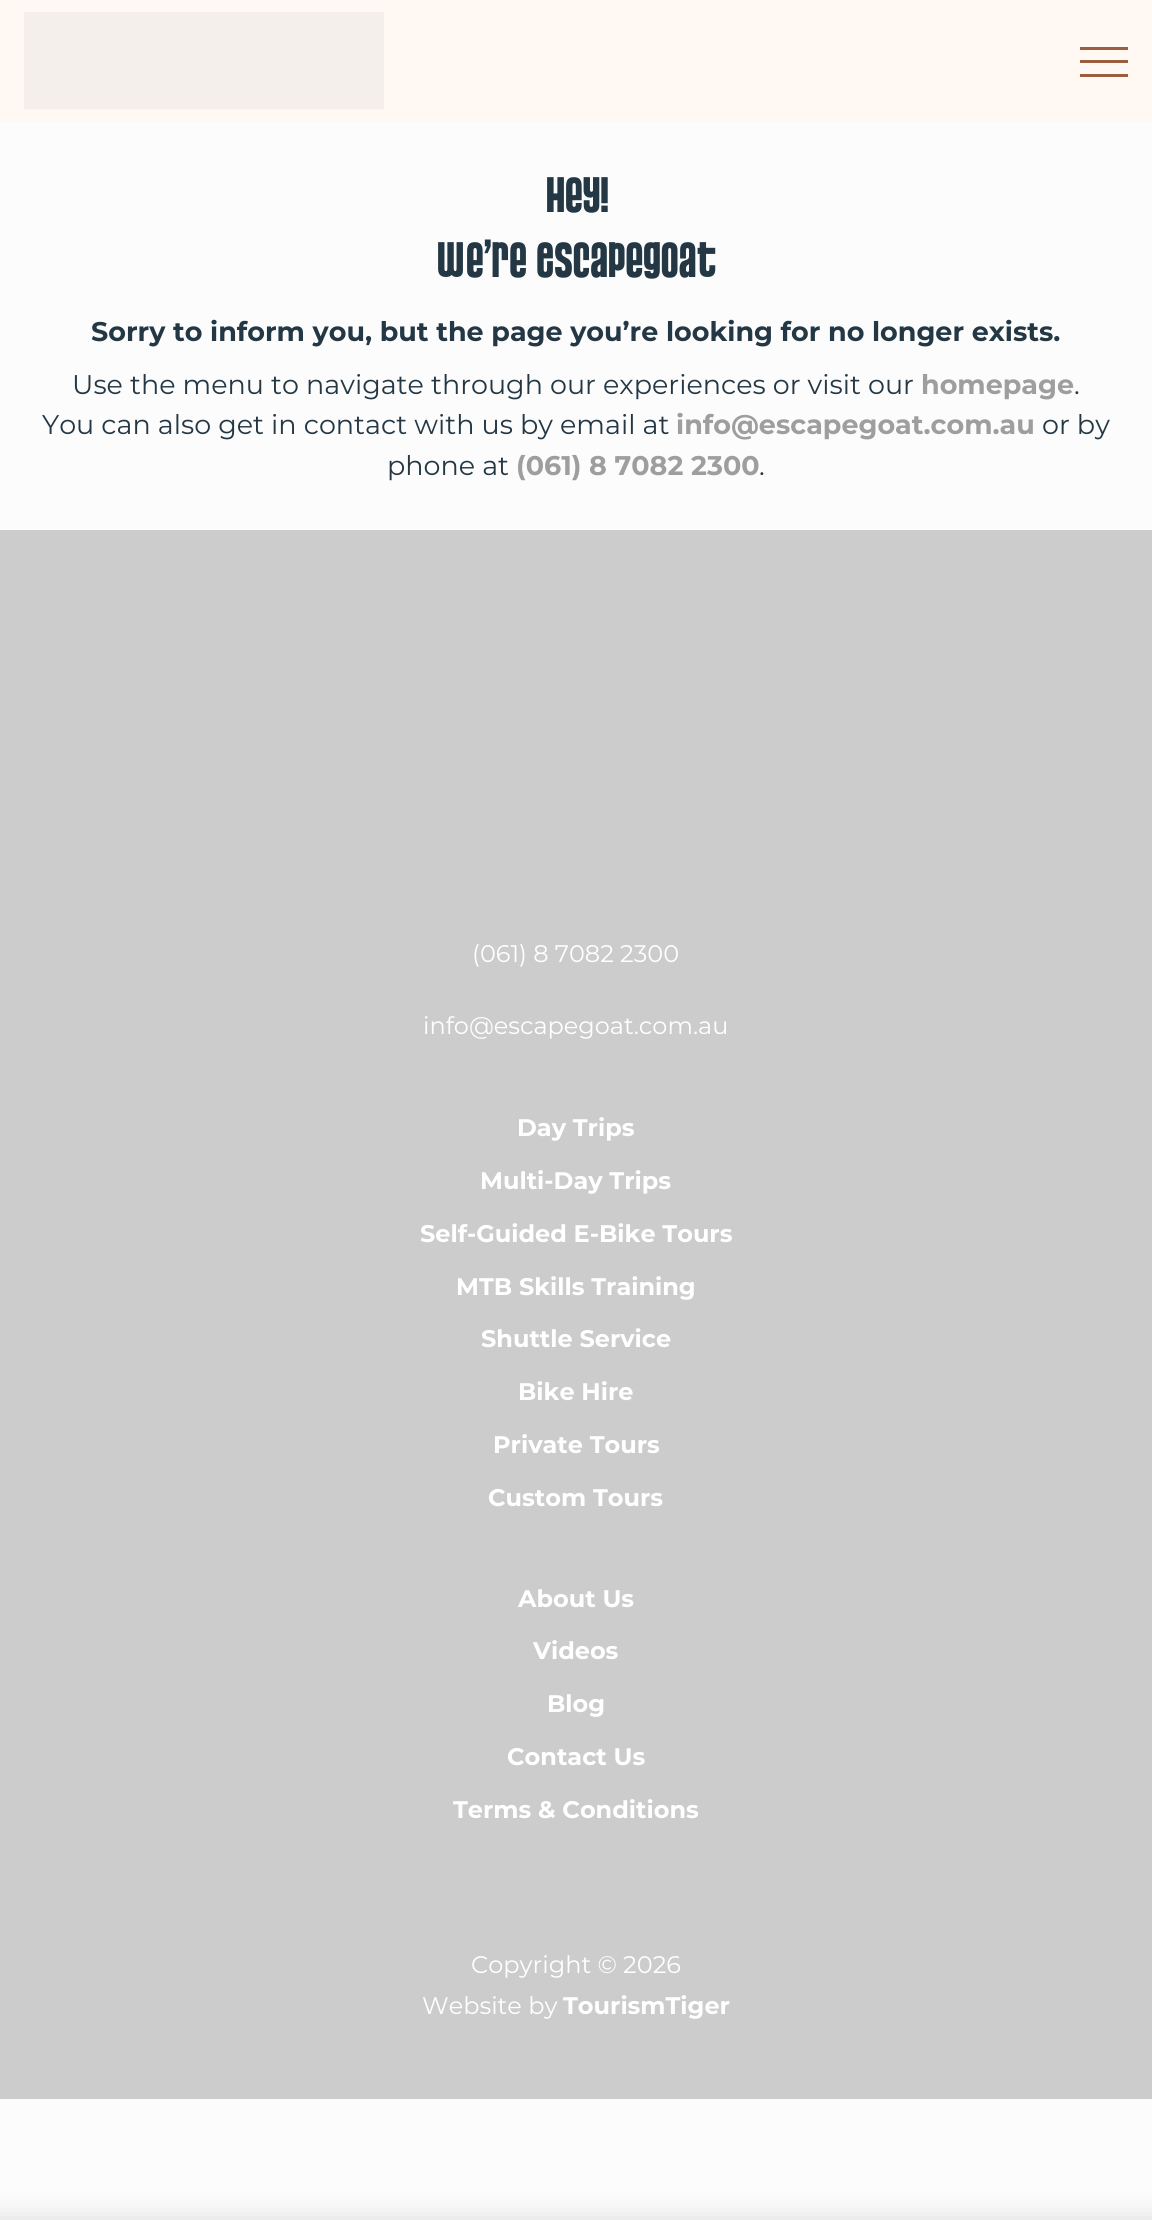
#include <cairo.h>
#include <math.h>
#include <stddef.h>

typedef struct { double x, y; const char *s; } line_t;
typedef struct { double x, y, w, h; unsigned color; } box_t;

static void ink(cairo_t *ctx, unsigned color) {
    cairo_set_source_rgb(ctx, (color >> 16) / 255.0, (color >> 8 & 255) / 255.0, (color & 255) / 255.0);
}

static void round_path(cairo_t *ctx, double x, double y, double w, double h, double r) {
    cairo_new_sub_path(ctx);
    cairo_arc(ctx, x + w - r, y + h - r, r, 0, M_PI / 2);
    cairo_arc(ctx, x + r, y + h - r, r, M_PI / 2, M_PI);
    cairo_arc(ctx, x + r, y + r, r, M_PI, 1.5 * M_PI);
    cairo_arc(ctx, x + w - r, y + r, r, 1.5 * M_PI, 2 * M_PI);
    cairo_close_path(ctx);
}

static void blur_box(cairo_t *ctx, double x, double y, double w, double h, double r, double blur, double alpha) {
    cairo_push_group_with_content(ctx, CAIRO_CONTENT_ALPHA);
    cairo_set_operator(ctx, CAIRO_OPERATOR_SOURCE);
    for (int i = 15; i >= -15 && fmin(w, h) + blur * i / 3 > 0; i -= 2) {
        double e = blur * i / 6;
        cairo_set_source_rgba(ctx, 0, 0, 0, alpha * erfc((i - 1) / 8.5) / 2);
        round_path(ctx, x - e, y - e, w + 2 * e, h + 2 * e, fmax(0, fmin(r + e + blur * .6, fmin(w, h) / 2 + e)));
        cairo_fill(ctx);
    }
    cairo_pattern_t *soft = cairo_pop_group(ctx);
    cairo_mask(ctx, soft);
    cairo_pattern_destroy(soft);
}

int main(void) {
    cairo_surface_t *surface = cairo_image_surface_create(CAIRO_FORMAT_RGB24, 1152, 2220);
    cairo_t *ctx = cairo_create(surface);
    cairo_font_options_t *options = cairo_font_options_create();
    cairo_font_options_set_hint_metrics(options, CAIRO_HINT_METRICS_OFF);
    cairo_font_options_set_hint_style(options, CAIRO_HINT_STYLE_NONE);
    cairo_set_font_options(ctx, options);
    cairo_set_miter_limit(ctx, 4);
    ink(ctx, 0xFCFCFC);
    cairo_paint(ctx);
    {
        static const box_t items[] = {
            {0, 0, 1152, 122, 0xFFF8F3},
            {24, 109, 360, 1, 0xFAF4EF},
            {24, 12, 360, 97, 0xF5EFEB},
            {1080, 47, 48, 3, 0x9C5D41},
            {1080, 60, 48, 3, 0x9C5D41},
            {1080, 74, 48, 3, 0x9C5D41},
        };
        for (size_t i = 0; i < sizeof items / sizeof *items; i++) {
            ink(ctx, items[i].color);
            cairo_rectangle(ctx, items[i].x, items[i].y, items[i].w, items[i].h);
            cairo_fill(ctx);
        }
    }
    cairo_select_font_face(ctx, "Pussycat", CAIRO_FONT_SLANT_NORMAL, CAIRO_FONT_WEIGHT_NORMAL);
    cairo_set_font_size(ctx, 52.5);
    ink(ctx, 0x233744);
    cairo_move_to(ctx, 545, 212);
    cairo_show_text(ctx, "Hey!");
    cairo_move_to(ctx, 436, 277);
    cairo_show_text(ctx, "We’re Escapegoat");
    cairo_select_font_face(ctx, "Montserrat", CAIRO_FONT_SLANT_NORMAL, CAIRO_FONT_WEIGHT_BOLD);
    cairo_set_font_size(ctx, 27);
    cairo_move_to(ctx, 91, 341);
    cairo_show_text(ctx, "Sorry to inform you, but the page you’re looking for no longer exists.");
    cairo_select_font_face(ctx, "Montserrat", CAIRO_FONT_SLANT_NORMAL, CAIRO_FONT_WEIGHT_NORMAL);
    cairo_move_to(ctx, 72, 394);
    cairo_show_text(ctx, "Use the menu to navigate through our experiences or visit our");
    cairo_select_font_face(ctx, "Montserrat", CAIRO_FONT_SLANT_NORMAL, CAIRO_FONT_WEIGHT_BOLD);
    ink(ctx, 0x9E9E9E);
    cairo_move_to(ctx, 921, 394);
    cairo_show_text(ctx, "homepage");
    cairo_select_font_face(ctx, "Montserrat", CAIRO_FONT_SLANT_NORMAL, CAIRO_FONT_WEIGHT_NORMAL);
    ink(ctx, 0x233744);
    cairo_move_to(ctx, 1074, 394);
    cairo_show_text(ctx, ".");
    cairo_move_to(ctx, 42, 434);
    cairo_show_text(ctx, "You can also get in contact with us by email at");
    cairo_select_font_face(ctx, "Montserrat", CAIRO_FONT_SLANT_NORMAL, CAIRO_FONT_WEIGHT_BOLD);
    ink(ctx, 0x9E9E9E);
    cairo_move_to(ctx, 676, 434);
    cairo_show_text(ctx, "info@escapegoat.com.au");
    cairo_select_font_face(ctx, "Montserrat", CAIRO_FONT_SLANT_NORMAL, CAIRO_FONT_WEIGHT_NORMAL);
    ink(ctx, 0x233744);
    cairo_move_to(ctx, 1042, 434);
    cairo_show_text(ctx, "or by");
    cairo_move_to(ctx, 387, 475);
    cairo_show_text(ctx, "phone at");
    cairo_select_font_face(ctx, "Montserrat", CAIRO_FONT_SLANT_NORMAL, CAIRO_FONT_WEIGHT_BOLD);
    ink(ctx, 0x9E9E9E);
    cairo_move_to(ctx, 516, 475);
    cairo_show_text(ctx, "(061) 8 7082 2300");
    cairo_select_font_face(ctx, "Montserrat", CAIRO_FONT_SLANT_NORMAL, CAIRO_FONT_WEIGHT_NORMAL);
    ink(ctx, 0x233744);
    cairo_move_to(ctx, 759, 475);
    cairo_show_text(ctx, ".");
    ink(ctx, 0xCCCCCC);
    cairo_rectangle(ctx, 0, 530, 1152, 1569);
    cairo_fill(ctx);
    cairo_set_font_size(ctx, 24);
    ink(ctx, 0xFFFFFF);
    cairo_move_to(ctx, 472, 962);
    cairo_show_text(ctx, "(061) 8 7082 2300");
    cairo_move_to(ctx, 423, 1034);
    cairo_show_text(ctx, "info@escapegoat.com.au");
    cairo_select_font_face(ctx, "Montserrat", CAIRO_FONT_SLANT_NORMAL, CAIRO_FONT_WEIGHT_BOLD);
    {
        static const line_t items[] = {
            {517, 1136, "Day Trips"},
            {480, 1189, "Multi-Day Trips"},
            {420, 1242, "Self-Guided E-Bike Tours"},
            {456, 1295, "MTB Skills Training"},
            {481, 1347, "Shuttle Service"},
            {518, 1400, "Bike Hire"},
            {493, 1453, "Private Tours"},
            {488, 1506, "Custom Tours"},
            {518, 1607, "About Us"},
            {533, 1659, "Videos"},
            {547, 1712, "Blog"},
            {507, 1765, "Contact Us"},
            {453, 1818, "Terms & Conditions"},
        };
        for (size_t i = 0; i < sizeof items / sizeof *items; i++) {
            cairo_move_to(ctx, items[i].x, items[i].y);
            cairo_show_text(ctx, items[i].s);
        }
    }
    cairo_select_font_face(ctx, "Montserrat", CAIRO_FONT_SLANT_NORMAL, CAIRO_FONT_WEIGHT_NORMAL);
    cairo_move_to(ctx, 471, 1973);
    cairo_show_text(ctx, "Copyright © 2026");
    cairo_move_to(ctx, 422, 2014);
    cairo_show_text(ctx, "Website by");
    cairo_select_font_face(ctx, "Montserrat", CAIRO_FONT_SLANT_NORMAL, CAIRO_FONT_WEIGHT_BOLD);
    cairo_move_to(ctx, 563, 2014);
    cairo_show_text(ctx, "TourismTiger");
    ink(ctx, 0x000000);
    blur_box(ctx, -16, 2214, 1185, 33, 0, 12, 0.1);
    cairo_surface_write_to_png(surface, "image.png");
    cairo_font_options_destroy(options);
    cairo_destroy(ctx);
    cairo_surface_destroy(surface);
    return 0;
}
